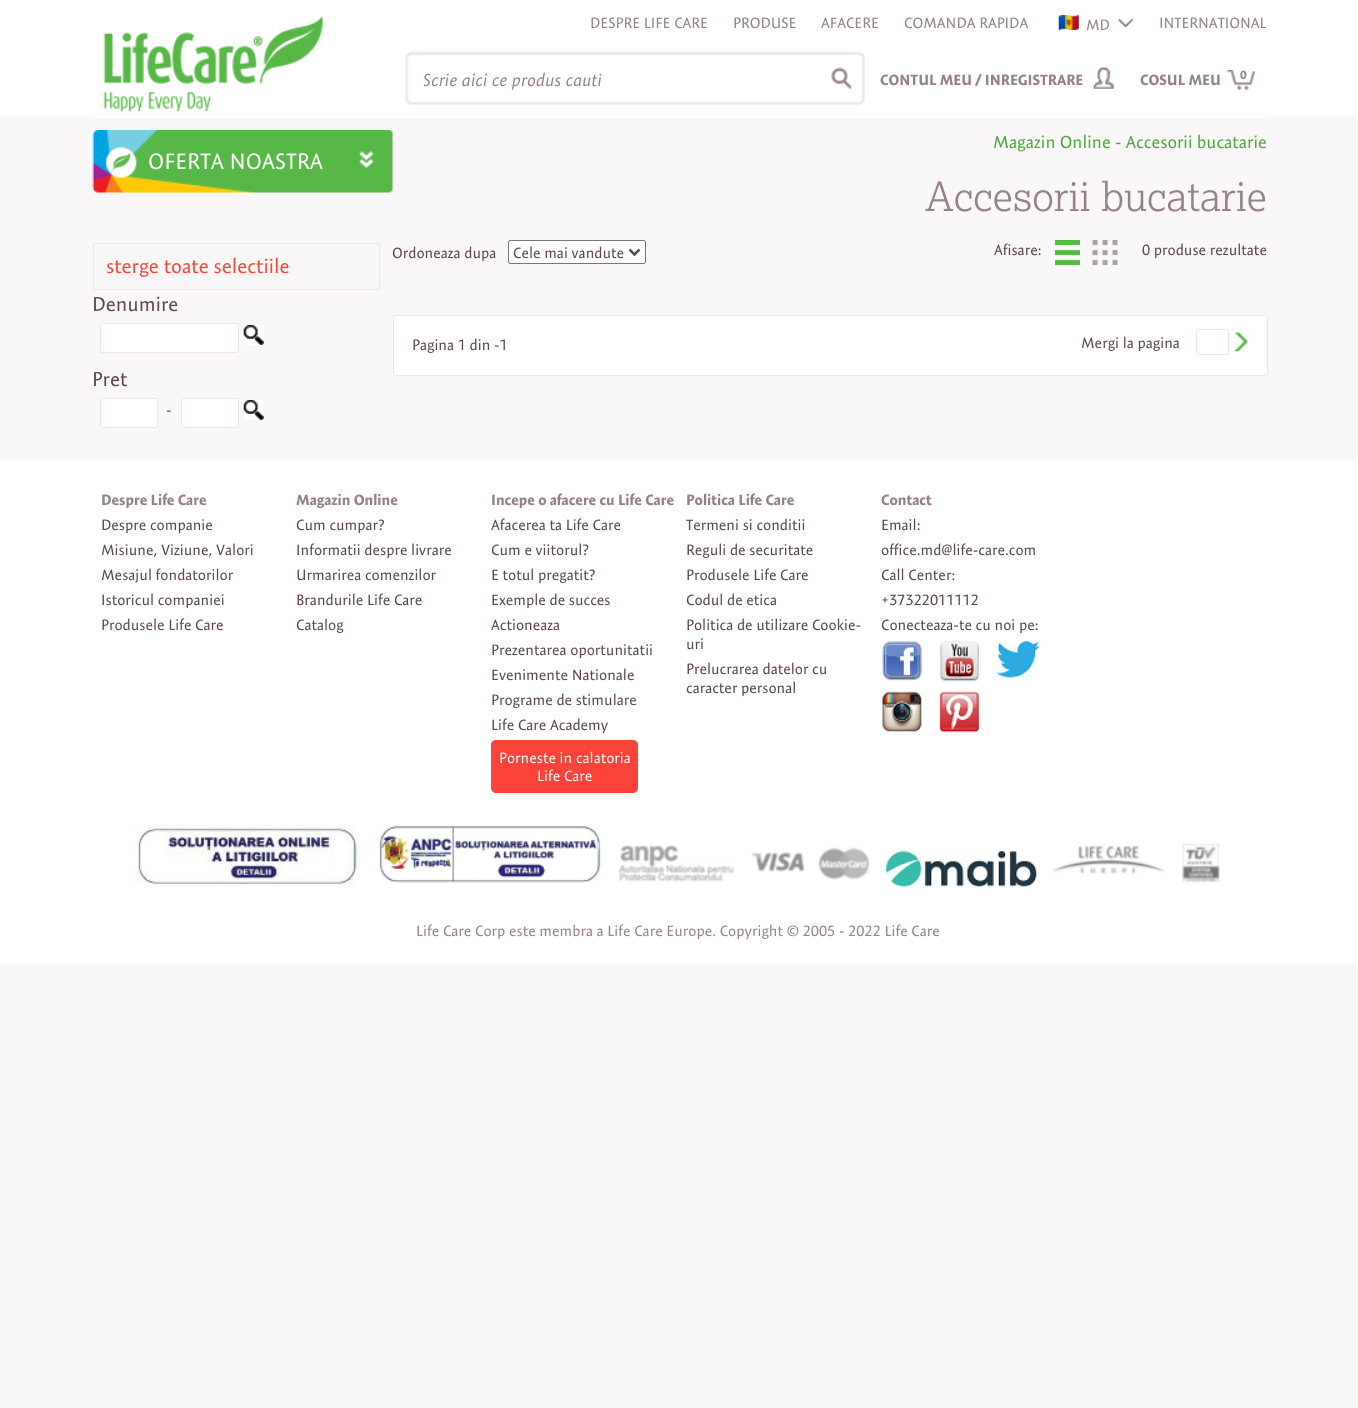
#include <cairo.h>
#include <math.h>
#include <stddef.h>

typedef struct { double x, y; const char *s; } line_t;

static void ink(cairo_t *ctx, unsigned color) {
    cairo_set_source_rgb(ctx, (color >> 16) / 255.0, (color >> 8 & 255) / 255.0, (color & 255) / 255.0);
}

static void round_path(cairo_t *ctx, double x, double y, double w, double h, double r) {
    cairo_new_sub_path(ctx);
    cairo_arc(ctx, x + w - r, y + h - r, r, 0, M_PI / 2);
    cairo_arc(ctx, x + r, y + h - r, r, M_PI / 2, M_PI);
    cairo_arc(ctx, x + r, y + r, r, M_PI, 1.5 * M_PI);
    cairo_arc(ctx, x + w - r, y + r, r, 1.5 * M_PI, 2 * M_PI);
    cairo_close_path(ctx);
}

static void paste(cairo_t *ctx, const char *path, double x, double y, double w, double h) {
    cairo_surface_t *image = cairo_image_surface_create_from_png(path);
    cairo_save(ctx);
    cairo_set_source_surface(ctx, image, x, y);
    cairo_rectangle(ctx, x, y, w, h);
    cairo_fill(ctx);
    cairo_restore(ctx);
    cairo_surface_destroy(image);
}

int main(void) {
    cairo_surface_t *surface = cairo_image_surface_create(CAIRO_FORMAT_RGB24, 1358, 1408);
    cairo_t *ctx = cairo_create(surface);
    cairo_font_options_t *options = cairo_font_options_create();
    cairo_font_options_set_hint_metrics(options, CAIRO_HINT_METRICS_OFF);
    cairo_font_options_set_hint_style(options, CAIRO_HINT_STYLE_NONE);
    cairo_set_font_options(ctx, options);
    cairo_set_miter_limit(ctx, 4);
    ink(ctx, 0xF9F7F7);
    cairo_paint(ctx);
    ink(ctx, 0xFFFFFF);
    cairo_rectangle(ctx, 0, 0, 1358, 117);
    cairo_fill(ctx);
    cairo_rectangle(ctx, 93, 117, 1175, 1);
    cairo_fill(ctx);
    paste(ctx, "media/1.png", 103, 16, 220, 96);
    cairo_select_font_face(ctx, "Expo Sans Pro", CAIRO_FONT_SLANT_NORMAL, CAIRO_FONT_WEIGHT_NORMAL);
    cairo_set_font_size(ctx, 15);
    ink(ctx, 0x958285);
    {
        static const line_t items[] = {
            {590, 28, "DESPRE LIFE CARE"},
            {733, 28, "PRODUSE"},
            {821, 28, "AFACERE"},
            {904, 28, "COMANDA RAPIDA"},
        };
        for (size_t i = 0; i < sizeof items / sizeof *items; i++) {
            cairo_move_to(ctx, items[i].x, items[i].y);
            cairo_show_text(ctx, items[i].s);
        }
    }
    paste(ctx, "media/2.png", 1058, 15, 21, 15);
    cairo_move_to(ctx, 1086, 30);
    cairo_show_text(ctx, "MD");
    paste(ctx, "media/3.png", 1117, 18, 17, 10);
    cairo_move_to(ctx, 1159, 28);
    cairo_show_text(ctx, "INTERNATIONAL");
    paste(ctx, "media/4.png", 405, 52, 5, 53);
    paste(ctx, "media/5.png", 410, 51, 455, 54);
    cairo_save(ctx);
    cairo_rectangle(ctx, 424, 69, 377, 22);
    cairo_clip(ctx);
    cairo_select_font_face(ctx, "Expo Sans Pro", CAIRO_FONT_SLANT_ITALIC, CAIRO_FONT_WEIGHT_NORMAL);
    cairo_set_font_size(ctx, 17.5);
    cairo_move_to(ctx, 423, 86);
    cairo_show_text(ctx, "Scrie aici ce produs cauti");
    cairo_restore(ctx);
    cairo_select_font_face(ctx, "Expo Sans Pro", CAIRO_FONT_SLANT_NORMAL, CAIRO_FONT_WEIGHT_BOLD);
    cairo_move_to(ctx, 880, 85);
    cairo_show_text(ctx, "CONTUL MEU / INREGISTRARE");
    paste(ctx, "media/6.png", 1093, 67, 21, 22);
    paste(ctx, "media/7.png", 1226, 70, 30, 20);
    cairo_move_to(ctx, 1140, 85);
    cairo_show_text(ctx, "COSUL MEU");
    cairo_set_font_size(ctx, 12);
    cairo_move_to(ctx, 1240, 79);
    cairo_show_text(ctx, "0");
    cairo_select_font_face(ctx, "Expo Sans Pro", CAIRO_FONT_SLANT_NORMAL, CAIRO_FONT_WEIGHT_NORMAL);
    cairo_set_font_size(ctx, 17.5);
    ink(ctx, 0x48AA39);
    cairo_move_to(ctx, 993, 148);
    cairo_show_text(ctx, "Magazin Online - Accesorii bucatarie");
    paste(ctx, "media/8.png", 92, 130, 301, 63);
    cairo_set_font_size(ctx, 22.5);
    ink(ctx, 0xFFFFFF);
    cairo_move_to(ctx, 148, 169);
    cairo_show_text(ctx, "OFERTA NOASTRA");
    paste(ctx, "media/9.png", 358, 151, 16, 17);
    round_path(ctx, 93.5, 243.5, 286, 46, 2);
    ink(ctx, 0xEEE6E7);
    cairo_set_line_width(ctx, 1);
    cairo_stroke(ctx);
    cairo_set_font_size(ctx, 20);
    ink(ctx, 0xFC4339);
    cairo_move_to(ctx, 106, 273);
    cairo_show_text(ctx, "sterge toate selectiile");
    ink(ctx, 0x5B474A);
    cairo_move_to(ctx, 92, 311);
    cairo_show_text(ctx, "Denumire");
    ink(ctx, 0xFFFFFF);
    round_path(ctx, 100.5, 323.5, 138, 29, 2);
    cairo_fill_preserve(ctx);
    ink(ctx, 0xEEE6E7);
    cairo_stroke(ctx);
    paste(ctx, "media/10.png", 243, 325, 21, 20);
    ink(ctx, 0x5B474A);
    cairo_move_to(ctx, 92, 386);
    cairo_show_text(ctx, "Pret");
    ink(ctx, 0xFFFFFF);
    round_path(ctx, 100.5, 398.5, 57, 29, 2);
    cairo_fill_preserve(ctx);
    ink(ctx, 0xEEE6E7);
    cairo_stroke(ctx);
    cairo_set_font_size(ctx, 15);
    ink(ctx, 0x5B474A);
    cairo_move_to(ctx, 166, 415);
    cairo_show_text(ctx, "-");
    ink(ctx, 0xFFFFFF);
    round_path(ctx, 181.5, 398.5, 57, 29, 2);
    cairo_fill_preserve(ctx);
    ink(ctx, 0xEEE6E7);
    cairo_stroke(ctx);
    paste(ctx, "media/10.png", 243, 400, 21, 20);
    cairo_select_font_face(ctx, "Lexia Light", CAIRO_FONT_SLANT_NORMAL, CAIRO_FONT_WEIGHT_NORMAL);
    cairo_set_font_size(ctx, 40);
    ink(ctx, 0x958285);
    cairo_move_to(ctx, 925, 211);
    cairo_show_text(ctx, "Accesorii bucatarie");
    cairo_select_font_face(ctx, "Expo Sans Pro", CAIRO_FONT_SLANT_NORMAL, CAIRO_FONT_WEIGHT_NORMAL);
    cairo_set_font_size(ctx, 15);
    ink(ctx, 0x5B474A);
    cairo_move_to(ctx, 392, 258);
    cairo_show_text(ctx, "Ordoneaza dupa");
    ink(ctx, 0xFFFFFF);
    round_path(ctx, 508.5, 240.5, 137, 23, 2);
    cairo_fill_preserve(ctx);
    ink(ctx, 0x767676);
    cairo_stroke(ctx);
    cairo_new_path(ctx);
    cairo_move_to(ctx, 629.5, 249.5);
    cairo_line_to(ctx, 634.5, 254.5);
    cairo_line_to(ctx, 639.5, 249.5);
    ink(ctx, 0x5B474A);
    cairo_set_line_width(ctx, 2.5);
    cairo_stroke(ctx);
    cairo_move_to(ctx, 513, 258);
    cairo_show_text(ctx, "Cele mai vandute");
    cairo_move_to(ctx, 994, 255);
    cairo_show_text(ctx, "Afisare:");
    paste(ctx, "media/11.png", 1055, 240, 25, 25);
    paste(ctx, "media/12.png", 1092, 240, 26, 25);
    cairo_move_to(ctx, 1142, 255);
    cairo_show_text(ctx, "0 produse rezultate");
    ink(ctx, 0xFFFFFF);
    round_path(ctx, 393.5, 315.5, 874, 60, 2);
    cairo_fill_preserve(ctx);
    ink(ctx, 0xEEE6E7);
    cairo_set_line_width(ctx, 1);
    cairo_stroke(ctx);
    ink(ctx, 0x5B474A);
    cairo_move_to(ctx, 412, 350);
    cairo_show_text(ctx, "Pagina 1 din -1");
    cairo_move_to(ctx, 1081, 348);
    cairo_show_text(ctx, "Mergi la pagina");
    round_path(ctx, 1196.5, 329.5, 32, 25, 2);
    ink(ctx, 0xEEE6E7);
    cairo_stroke(ctx);
    paste(ctx, "media/13.png", 1233, 332, 15, 20);
    ink(ctx, 0xFFFFFF);
    cairo_rectangle(ctx, 0, 459, 1358, 506);
    cairo_fill(ctx);
    cairo_select_font_face(ctx, "Expo Sans Pro", CAIRO_FONT_SLANT_NORMAL, CAIRO_FONT_WEIGHT_BOLD);
    ink(ctx, 0x958285);
    cairo_move_to(ctx, 101, 505);
    cairo_show_text(ctx, "Despre Life Care");
    cairo_select_font_face(ctx, "Expo Sans Pro", CAIRO_FONT_SLANT_NORMAL, CAIRO_FONT_WEIGHT_NORMAL);
    ink(ctx, 0x5B474A);
    {
        static const line_t items[] = {
            {101, 530, "Despre companie"},
            {101, 555, "Misiune, Viziune, Valori"},
            {101, 580, "Mesajul fondatorilor"},
            {101, 605, "Istoricul companiei"},
            {101, 630, "Produsele Life Care"},
        };
        for (size_t i = 0; i < sizeof items / sizeof *items; i++) {
            cairo_move_to(ctx, items[i].x, items[i].y);
            cairo_show_text(ctx, items[i].s);
        }
    }
    cairo_select_font_face(ctx, "Expo Sans Pro", CAIRO_FONT_SLANT_NORMAL, CAIRO_FONT_WEIGHT_BOLD);
    ink(ctx, 0x958285);
    cairo_move_to(ctx, 296, 505);
    cairo_show_text(ctx, "Magazin Online");
    cairo_select_font_face(ctx, "Expo Sans Pro", CAIRO_FONT_SLANT_NORMAL, CAIRO_FONT_WEIGHT_NORMAL);
    ink(ctx, 0x5B474A);
    {
        static const line_t items[] = {
            {296, 530, "Cum cumpar?"},
            {296, 555, "Informatii despre livrare"},
            {296, 580, "Urmarirea comenzilor"},
            {296, 605, "Brandurile Life Care"},
            {296, 630, "Catalog"},
        };
        for (size_t i = 0; i < sizeof items / sizeof *items; i++) {
            cairo_move_to(ctx, items[i].x, items[i].y);
            cairo_show_text(ctx, items[i].s);
        }
    }
    cairo_select_font_face(ctx, "Expo Sans Pro", CAIRO_FONT_SLANT_NORMAL, CAIRO_FONT_WEIGHT_BOLD);
    ink(ctx, 0x958285);
    cairo_move_to(ctx, 491, 505);
    cairo_show_text(ctx, "Incepe o afacere cu Life Care");
    cairo_select_font_face(ctx, "Expo Sans Pro", CAIRO_FONT_SLANT_NORMAL, CAIRO_FONT_WEIGHT_NORMAL);
    ink(ctx, 0x5B474A);
    {
        static const line_t items[] = {
            {491, 530, "Afacerea ta Life Care"},
            {491, 555, "Cum e viitorul?"},
            {491, 580, "E totul pregatit?"},
            {491, 605, "Exemple de succes"},
            {491, 630, "Actioneaza"},
            {491, 655, "Prezentarea oportunitatii"},
            {491, 680, "Evenimente Nationale"},
            {491, 705, "Programe de stimulare"},
            {491, 730, "Life Care Academy"},
        };
        for (size_t i = 0; i < sizeof items / sizeof *items; i++) {
            cairo_move_to(ctx, items[i].x, items[i].y);
            cairo_show_text(ctx, items[i].s);
        }
    }
    ink(ctx, 0xFC4339);
    round_path(ctx, 491.5, 740.5, 146, 52, 4.5);
    cairo_fill_preserve(ctx);
    cairo_stroke(ctx);
    ink(ctx, 0xFFFFFF);
    cairo_move_to(ctx, 499, 763);
    cairo_show_text(ctx, "Porneste in calatoria");
    cairo_move_to(ctx, 537, 781);
    cairo_show_text(ctx, "Life Care");
    cairo_select_font_face(ctx, "Expo Sans Pro", CAIRO_FONT_SLANT_NORMAL, CAIRO_FONT_WEIGHT_BOLD);
    ink(ctx, 0x958285);
    cairo_move_to(ctx, 686, 505);
    cairo_show_text(ctx, "Politica Life Care");
    cairo_select_font_face(ctx, "Expo Sans Pro", CAIRO_FONT_SLANT_NORMAL, CAIRO_FONT_WEIGHT_NORMAL);
    ink(ctx, 0x5B474A);
    {
        static const line_t items[] = {
            {686, 530, "Termeni si conditii"},
            {686, 555, "Reguli de securitate"},
            {686, 580, "Produsele Life Care"},
            {686, 605, "Codul de etica"},
            {686, 630, "Politica de utilizare Cookie-"},
            {686, 649, "uri"},
            {686, 674, "Prelucrarea datelor cu"},
            {686, 693, "caracter personal"},
        };
        for (size_t i = 0; i < sizeof items / sizeof *items; i++) {
            cairo_move_to(ctx, items[i].x, items[i].y);
            cairo_show_text(ctx, items[i].s);
        }
    }
    cairo_select_font_face(ctx, "Expo Sans Pro", CAIRO_FONT_SLANT_NORMAL, CAIRO_FONT_WEIGHT_BOLD);
    ink(ctx, 0x958285);
    cairo_move_to(ctx, 881, 505);
    cairo_show_text(ctx, "Contact");
    cairo_select_font_face(ctx, "Expo Sans Pro", CAIRO_FONT_SLANT_NORMAL, CAIRO_FONT_WEIGHT_NORMAL);
    ink(ctx, 0x5B474A);
    {
        static const line_t items[] = {
            {881, 530, "Email:"},
            {881, 555, "office.md@life-care.com"},
            {881, 580, "Call Center:"},
            {881, 605, "+37322011112"},
            {881, 630, "Conecteaza-te cu noi pe:"},
        };
        for (size_t i = 0; i < sizeof items / sizeof *items; i++) {
            cairo_move_to(ctx, items[i].x, items[i].y);
            cairo_show_text(ctx, items[i].s);
        }
    }
    paste(ctx, "media/14.png", 882, 641, 41, 40);
    paste(ctx, "media/15.png", 940, 641, 39, 41);
    paste(ctx, "media/16.png", 996, 641, 43, 37);
    paste(ctx, "media/17.png", 882, 691, 40, 41);
    paste(ctx, "media/18.png", 939, 691, 40, 42);
    paste(ctx, "media/19.png", 135, 825, 225, 61);
    paste(ctx, "media/20.png", 379, 824, 222, 59);
    paste(ctx, "media/21.png", 618, 845, 117, 37);
    paste(ctx, "media/22.png", 751, 852, 53, 20);
    paste(ctx, "media/23.png", 818, 847, 52, 33);
    paste(ctx, "media/24.png", 886, 850, 151, 37);
    paste(ctx, "media/25.png", 1052, 846, 113, 28);
    paste(ctx, "media/26.png", 1182, 843, 38, 40);
    ink(ctx, 0x958285);
    cairo_move_to(ctx, 416, 936);
    cairo_show_text(ctx, "Life Care Corp este membra a Life Care Europe. Copyright © 2005 - 2022 Life Care");
    cairo_surface_write_to_png(surface, "image.png");
    cairo_font_options_destroy(options);
    cairo_destroy(ctx);
    cairo_surface_destroy(surface);
    return 0;
}
